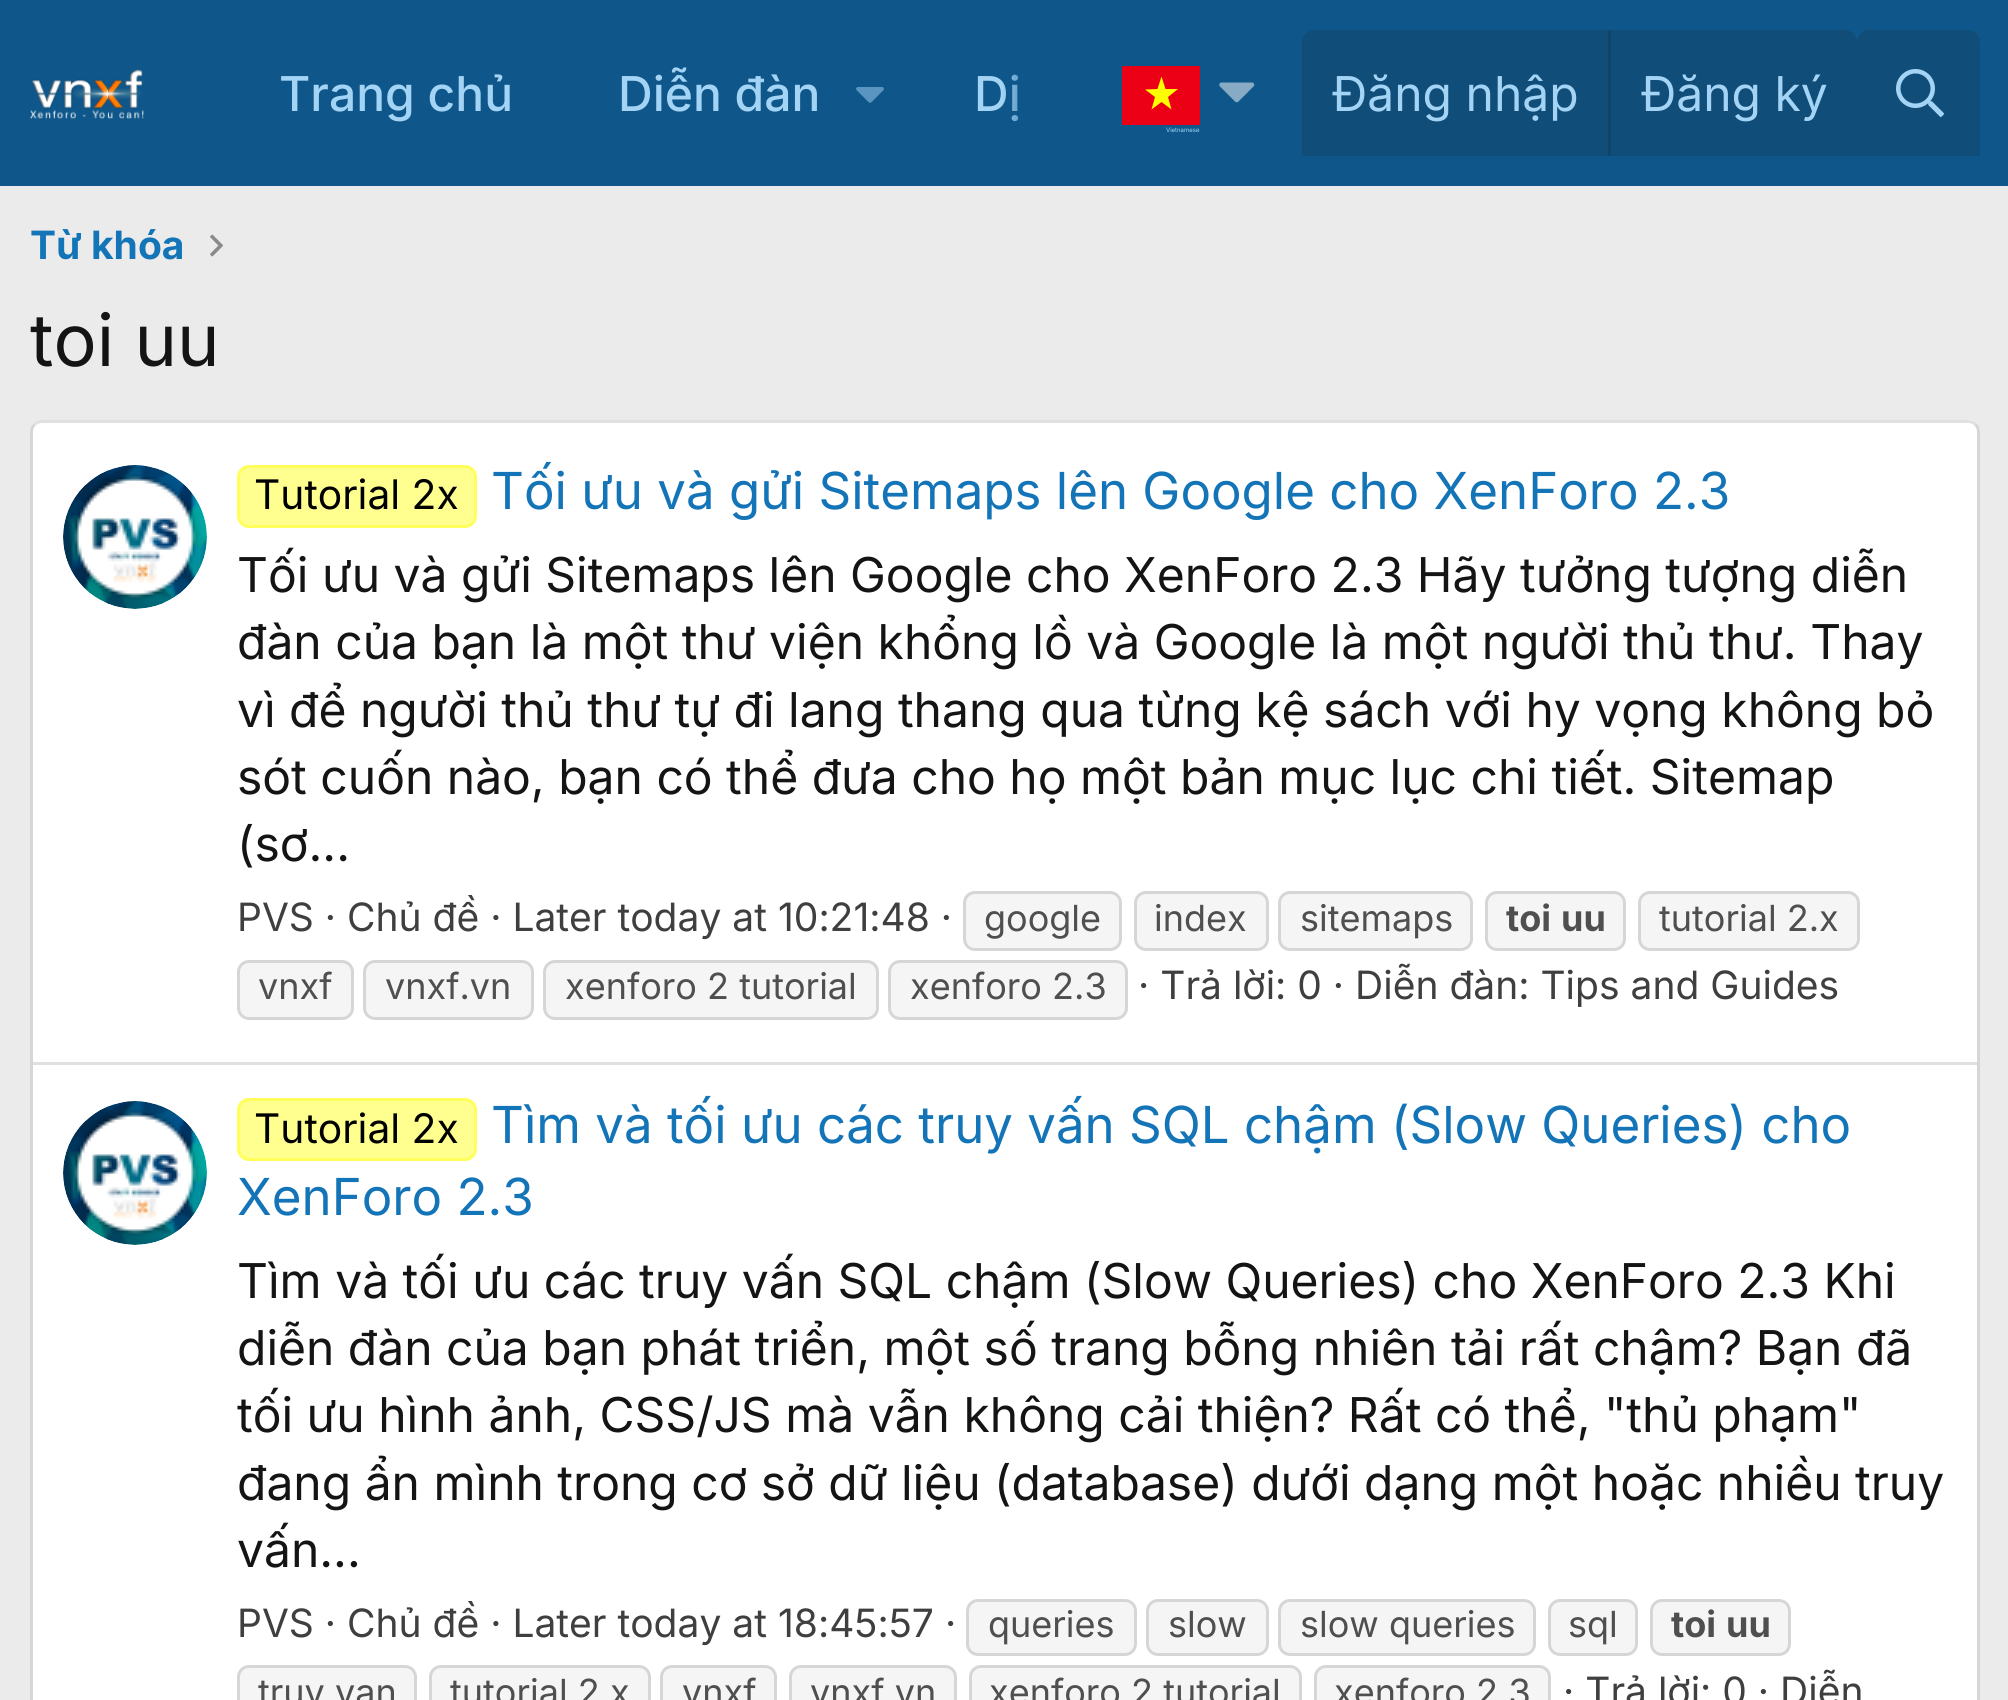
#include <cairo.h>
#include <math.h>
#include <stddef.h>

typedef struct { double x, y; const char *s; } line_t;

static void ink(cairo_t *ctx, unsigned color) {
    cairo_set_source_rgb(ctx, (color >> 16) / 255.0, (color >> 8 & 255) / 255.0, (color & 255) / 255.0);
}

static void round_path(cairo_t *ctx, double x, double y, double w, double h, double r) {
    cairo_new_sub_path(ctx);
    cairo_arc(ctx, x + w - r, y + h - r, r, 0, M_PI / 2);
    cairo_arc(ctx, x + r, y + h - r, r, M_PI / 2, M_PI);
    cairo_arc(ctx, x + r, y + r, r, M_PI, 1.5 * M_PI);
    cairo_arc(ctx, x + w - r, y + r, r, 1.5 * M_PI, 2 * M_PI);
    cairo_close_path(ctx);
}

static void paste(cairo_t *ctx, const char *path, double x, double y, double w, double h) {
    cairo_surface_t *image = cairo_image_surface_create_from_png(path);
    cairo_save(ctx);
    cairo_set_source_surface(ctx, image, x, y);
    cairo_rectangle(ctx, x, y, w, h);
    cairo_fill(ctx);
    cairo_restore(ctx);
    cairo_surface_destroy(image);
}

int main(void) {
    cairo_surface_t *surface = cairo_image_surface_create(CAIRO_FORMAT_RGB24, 2008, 1700);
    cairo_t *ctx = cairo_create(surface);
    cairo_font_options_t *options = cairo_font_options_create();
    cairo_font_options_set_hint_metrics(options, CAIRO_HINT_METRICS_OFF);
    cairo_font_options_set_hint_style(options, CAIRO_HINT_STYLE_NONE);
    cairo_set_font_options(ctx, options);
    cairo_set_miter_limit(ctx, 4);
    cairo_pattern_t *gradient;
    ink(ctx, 0xEBEBEB);
    cairo_paint(ctx);
    ink(ctx, 0x0F578A);
    cairo_rectangle(ctx, 0, 0, 2008, 186);
    cairo_fill(ctx);
    paste(ctx, "media/1.png", 30, 69, 114, 50);
    cairo_select_font_face(ctx, "Inter Medium", CAIRO_FONT_SLANT_NORMAL, CAIRO_FONT_WEIGHT_NORMAL);
    cairo_set_font_size(ctx, 48);
    ink(ctx, 0xA3D4F5);
    cairo_move_to(ctx, 279, 111);
    cairo_show_text(ctx, "Trang chủ");
    cairo_move_to(ctx, 618, 111);
    cairo_show_text(ctx, "Diễn đàn");
    paste(ctx, "media/2.png", 856, 87, 28, 16);
    cairo_move_to(ctx, 974, 111);
    cairo_show_text(ctx, "Dị");
    gradient = cairo_pattern_create_linear(1002, 93, 1122, 93);
    cairo_pattern_add_color_stop_rgba(gradient, 0, 0.059, 0.341, 0.541, 0);
    cairo_pattern_add_color_stop_rgba(gradient, 0.33, 0.059, 0.341, 0.541, 1);
    cairo_set_source(ctx, gradient);
    cairo_pattern_destroy(gradient);
    cairo_rectangle(ctx, 1003, 74, 15, 48);
    cairo_fill(ctx);
    ink(ctx, 0x104D78);
    cairo_new_path(ctx);
    cairo_move_to(ctx, 1314, 30);
    cairo_line_to(ctx, 1845, 30);
    cairo_curve_to(ctx, 1851.5, 30, 1857, 35.5, 1857, 42);
    cairo_line_to(ctx, 1857, 156);
    cairo_line_to(ctx, 1302, 156);
    cairo_line_to(ctx, 1302, 42);
    cairo_curve_to(ctx, 1302, 35.5, 1307.5, 30, 1314, 30);
    cairo_close_path(ctx);
    cairo_fill(ctx);
    cairo_select_font_face(ctx, "Inter", CAIRO_FONT_SLANT_NORMAL, CAIRO_FONT_WEIGHT_NORMAL);
    ink(ctx, 0xA3D4F5);
    cairo_move_to(ctx, 1332, 111);
    cairo_show_text(ctx, "Đăng nhập");
    ink(ctx, 0x114469);
    cairo_rectangle(ctx, 1608, 30, 3, 126);
    cairo_fill(ctx);
    ink(ctx, 0xA3D4F5);
    cairo_move_to(ctx, 1641, 111);
    cairo_show_text(ctx, "Đăng ký");
    ink(ctx, 0x104D78);
    cairo_new_path(ctx);
    cairo_move_to(ctx, 1869, 30);
    cairo_line_to(ctx, 1968, 30);
    cairo_curve_to(ctx, 1974.5, 30, 1980, 35.5, 1980, 42);
    cairo_line_to(ctx, 1980, 156);
    cairo_line_to(ctx, 1857, 156);
    cairo_line_to(ctx, 1857, 42);
    cairo_curve_to(ctx, 1857, 35.5, 1862.5, 30, 1869, 30);
    cairo_close_path(ctx);
    cairo_fill(ctx);
    paste(ctx, "media/3.png", 1896, 69, 48, 48);
    ink(ctx, 0x87ABC5);
    cairo_new_path(ctx);
    cairo_move_to(ctx, 1221.5, 82.5);
    cairo_line_to(ctx, 1252, 82.5);
    cairo_curve_to(ctx, 1254, 82.5, 1255, 85, 1253.5, 86.5);
    cairo_line_to(ctx, 1238.5, 101.5);
    cairo_curve_to(ctx, 1237.5, 102.5, 1236, 102.5, 1235, 101.5);
    cairo_line_to(ctx, 1220, 86.5);
    cairo_curve_to(ctx, 1218.5, 85, 1219.5, 82.5, 1221.5, 82.5);
    cairo_close_path(ctx);
    cairo_fill(ctx);
    ink(ctx, 0xEC0015);
    cairo_rectangle(ctx, 1122, 66, 78, 59);
    cairo_fill(ctx);
    ink(ctx, 0xFFFF00);
    cairo_set_fill_rule(ctx, CAIRO_FILL_RULE_EVEN_ODD);
    cairo_new_path(ctx);
    cairo_move_to(ctx, 1171.5, 109.5);
    cairo_line_to(ctx, 1161.5, 102);
    cairo_line_to(ctx, 1151.5, 109.5);
    cairo_line_to(ctx, 1155, 97);
    cairo_line_to(ctx, 1145, 89.5);
    cairo_line_to(ctx, 1157.5, 89);
    cairo_line_to(ctx, 1161.5, 76.5);
    cairo_line_to(ctx, 1165.5, 89);
    cairo_line_to(ctx, 1178, 89);
    cairo_line_to(ctx, 1168, 97);
    cairo_close_path(ctx);
    cairo_fill(ctx);
    cairo_set_font_size(ctx, 6);
    ink(ctx, 0xA3D4F5);
    cairo_move_to(ctx, 1166, 132);
    cairo_show_text(ctx, "Vietnamese");
    cairo_select_font_face(ctx, "Inter", CAIRO_FONT_SLANT_NORMAL, CAIRO_FONT_WEIGHT_BOLD);
    cairo_set_font_size(ctx, 39);
    ink(ctx, 0x1474B8);
    cairo_move_to(ctx, 30, 259);
    cairo_show_text(ctx, "Từ khóa");
    paste(ctx, "media/4.png", 210, 234, 13, 23);
    cairo_select_font_face(ctx, "Inter", CAIRO_FONT_SLANT_NORMAL, CAIRO_FONT_WEIGHT_NORMAL);
    cairo_set_font_size(ctx, 72);
    ink(ctx, 0x141414);
    cairo_move_to(ctx, 30, 366);
    cairo_show_text(ctx, "toi uu");
    ink(ctx, 0xFFFFFF);
    round_path(ctx, 30, 420, 1950, 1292, 12);
    cairo_fill(ctx);
    cairo_new_path(ctx);
    cairo_move_to(ctx, 34.5, 424.5);
    cairo_curve_to(ctx, 36.5, 422.5, 39, 421.5, 42, 421.5);
    cairo_line_to(ctx, 1968, 421.5);
    cairo_curve_to(ctx, 1971, 421.5, 1973.5, 422.5, 1975.5, 424.5);
    ink(ctx, 0xE0E0E0);
    cairo_set_line_width(ctx, 3);
    cairo_stroke(ctx);
    cairo_new_path(ctx);
    cairo_move_to(ctx, 1975.5, 424.5);
    cairo_curve_to(ctx, 1977.5, 426.5, 1978.5, 429, 1978.5, 432);
    cairo_line_to(ctx, 1978.5, 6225);
    cairo_curve_to(ctx, 1978.5, 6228, 1977.5, 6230.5, 1975.5, 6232.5);
    ink(ctx, 0xD6D6D6);
    cairo_stroke(ctx);
    cairo_new_path(ctx);
    cairo_move_to(ctx, 34.5, 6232.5);
    cairo_curve_to(ctx, 32.5, 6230.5, 31.5, 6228, 31.5, 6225);
    cairo_line_to(ctx, 31.5, 432);
    cairo_curve_to(ctx, 31.5, 429, 32.5, 426.5, 34.5, 424.5);
    cairo_stroke(ctx);
    paste(ctx, "media/5.png", 63, 465, 144, 144);
    ink(ctx, 0xFFFF8F);
    round_path(ctx, 238.5, 466.5, 237, 60, 10.5);
    cairo_fill_preserve(ctx);
    ink(ctx, 0xFFFF5C);
    cairo_stroke(ctx);
    cairo_set_font_size(ctx, 40.75);
    ink(ctx, 0x000000);
    cairo_move_to(ctx, 254, 509);
    cairo_show_text(ctx, "Tutorial 2x");
    cairo_set_font_size(ctx, 51);
    ink(ctx, 0x1474B8);
    cairo_move_to(ctx, 491, 509);
    cairo_show_text(ctx, "Tối ưu và gửi Sitemaps lên Google cho XenForo 2.3");
    cairo_set_font_size(ctx, 48);
    ink(ctx, 0x141414);
    {
        static const line_t items[] = {
            {237, 592, "Tối ưu và gửi Sitemaps lên Google cho XenForo 2.3 Hãy tưởng tượng diễn"},
            {237, 659, "đàn của bạn là một thư viện khổng lồ và Google là một người thủ thư. Thay"},
            {237, 727, "vì để người thủ thư tự đi lang thang qua từng kệ sách với hy vọng không bỏ"},
            {237, 794, "sót cuốn nào, bạn có thể đưa cho họ một bản mục lục chi tiết. Sitemap"},
            {237, 861, "(sơ..."},
        };
        for (size_t i = 0; i < sizeof items / sizeof *items; i++) {
            cairo_move_to(ctx, items[i].x, items[i].y);
            cairo_show_text(ctx, items[i].s);
        }
    }
    cairo_set_font_size(ctx, 39);
    ink(ctx, 0x3F3F3F);
    cairo_move_to(ctx, 237, 931);
    cairo_show_text(ctx, "PVS · Chủ đề · Later today at 10:21:48 ·");
    ink(ctx, 0xF5F5F5);
    round_path(ctx, 964.5, 892.5, 156, 57, 10.5);
    cairo_fill_preserve(ctx);
    ink(ctx, 0xD6D6D6);
    cairo_stroke(ctx);
    cairo_set_font_size(ctx, 36);
    ink(ctx, 0x4F4F4F);
    cairo_move_to(ctx, 984, 931);
    cairo_show_text(ctx, "google");
    ink(ctx, 0xF5F5F5);
    round_path(ctx, 1135.5, 892.5, 132, 57, 10.5);
    cairo_fill_preserve(ctx);
    ink(ctx, 0xD6D6D6);
    cairo_stroke(ctx);
    ink(ctx, 0x4F4F4F);
    cairo_move_to(ctx, 1154, 931);
    cairo_show_text(ctx, "index");
    ink(ctx, 0xF5F5F5);
    round_path(ctx, 1279.5, 892.5, 192, 57, 10.5);
    cairo_fill_preserve(ctx);
    ink(ctx, 0xD6D6D6);
    cairo_stroke(ctx);
    ink(ctx, 0x4F4F4F);
    cairo_move_to(ctx, 1300, 931);
    cairo_show_text(ctx, "sitemaps");
    ink(ctx, 0xF5F5F5);
    round_path(ctx, 1486.5, 892.5, 138, 57, 10.5);
    cairo_fill_preserve(ctx);
    ink(ctx, 0xD6D6D6);
    cairo_stroke(ctx);
    cairo_select_font_face(ctx, "Inter", CAIRO_FONT_SLANT_NORMAL, CAIRO_FONT_WEIGHT_BOLD);
    ink(ctx, 0x4F4F4F);
    cairo_move_to(ctx, 1506, 931);
    cairo_show_text(ctx, "toi");
    cairo_move_to(ctx, 1561, 931);
    cairo_show_text(ctx, "uu");
    ink(ctx, 0xF5F5F5);
    round_path(ctx, 1639.5, 892.5, 219, 57, 10.5);
    cairo_fill_preserve(ctx);
    ink(ctx, 0xD6D6D6);
    cairo_stroke(ctx);
    cairo_select_font_face(ctx, "Inter", CAIRO_FONT_SLANT_NORMAL, CAIRO_FONT_WEIGHT_NORMAL);
    ink(ctx, 0x4F4F4F);
    cairo_move_to(ctx, 1659, 931);
    cairo_show_text(ctx, "tutorial 2.x");
    ink(ctx, 0xF5F5F5);
    round_path(ctx, 238.5, 961.5, 114, 57, 10.5);
    cairo_fill_preserve(ctx);
    ink(ctx, 0xD6D6D6);
    cairo_stroke(ctx);
    ink(ctx, 0x4F4F4F);
    cairo_move_to(ctx, 258, 999);
    cairo_show_text(ctx, "vnxf");
    ink(ctx, 0xF5F5F5);
    round_path(ctx, 364.5, 961.5, 168, 57, 10.5);
    cairo_fill_preserve(ctx);
    ink(ctx, 0xD6D6D6);
    cairo_stroke(ctx);
    ink(ctx, 0x4F4F4F);
    cairo_move_to(ctx, 385, 999);
    cairo_show_text(ctx, "vnxf.vn");
    ink(ctx, 0xF5F5F5);
    round_path(ctx, 544.5, 961.5, 333, 57, 10.5);
    cairo_fill_preserve(ctx);
    ink(ctx, 0xD6D6D6);
    cairo_stroke(ctx);
    ink(ctx, 0x4F4F4F);
    cairo_move_to(ctx, 565, 999);
    cairo_show_text(ctx, "xenforo 2 tutorial");
    ink(ctx, 0xF5F5F5);
    round_path(ctx, 889.5, 961.5, 237, 57, 10.5);
    cairo_fill_preserve(ctx);
    ink(ctx, 0xD6D6D6);
    cairo_stroke(ctx);
    ink(ctx, 0x4F4F4F);
    cairo_move_to(ctx, 910, 999);
    cairo_show_text(ctx, "xenforo 2.3");
    cairo_set_font_size(ctx, 39);
    ink(ctx, 0x3F3F3F);
    cairo_move_to(ctx, 1138, 999);
    cairo_show_text(ctx, "· Trả lời: 0 · Diễn đàn: Tips and Guides");
    ink(ctx, 0xE0E0E0);
    cairo_rectangle(ctx, 33, 1062, 1944, 3);
    cairo_fill(ctx);
    paste(ctx, "media/6.png", 63, 1101, 144, 144);
    ink(ctx, 0xFFFF8F);
    round_path(ctx, 238.5, 1099.5, 237, 60, 10.5);
    cairo_fill_preserve(ctx);
    ink(ctx, 0xFFFF5C);
    cairo_stroke(ctx);
    cairo_set_font_size(ctx, 40.75);
    ink(ctx, 0x000000);
    cairo_move_to(ctx, 254, 1143);
    cairo_show_text(ctx, "Tutorial 2x");
    cairo_set_font_size(ctx, 51);
    ink(ctx, 0x1474B8);
    cairo_move_to(ctx, 491, 1143);
    cairo_show_text(ctx, "Tìm và tối ưu các truy vấn SQL chậm (Slow Queries) cho");
    cairo_move_to(ctx, 237, 1215);
    cairo_show_text(ctx, "XenForo 2.3");
    cairo_set_font_size(ctx, 48);
    ink(ctx, 0x141414);
    {
        static const line_t items[] = {
            {237, 1298, "Tìm và tối ưu các truy vấn SQL chậm (Slow Queries) cho XenForo 2.3 Khi"},
            {237, 1365, "diễn đàn của bạn phát triển, một số trang bỗng nhiên tải rất chậm? Bạn đã"},
            {237, 1432, "tối ưu hình ảnh, CSS/JS mà vẫn không cải thiện? Rất có thể, \"thủ phạm\""},
            {237, 1500, "đang ẩn mình trong cơ sở dữ liệu (database) dưới dạng một hoặc nhiều truy"},
            {237, 1567, "vấn..."},
        };
        for (size_t i = 0; i < sizeof items / sizeof *items; i++) {
            cairo_move_to(ctx, items[i].x, items[i].y);
            cairo_show_text(ctx, items[i].s);
        }
    }
    cairo_set_font_size(ctx, 39);
    ink(ctx, 0x3F3F3F);
    cairo_move_to(ctx, 237, 1637);
    cairo_show_text(ctx, "PVS · Chủ đề · Later today at 18:45:57 ·");
    ink(ctx, 0xF5F5F5);
    round_path(ctx, 967.5, 1600.5, 168, 54, 10.5);
    cairo_fill_preserve(ctx);
    ink(ctx, 0xD6D6D6);
    cairo_stroke(ctx);
    cairo_set_font_size(ctx, 36);
    ink(ctx, 0x4F4F4F);
    cairo_move_to(ctx, 988, 1637);
    cairo_show_text(ctx, "queries");
    ink(ctx, 0xF5F5F5);
    round_path(ctx, 1147.5, 1600.5, 120, 54, 10.5);
    cairo_fill_preserve(ctx);
    ink(ctx, 0xD6D6D6);
    cairo_stroke(ctx);
    ink(ctx, 0x4F4F4F);
    cairo_move_to(ctx, 1168, 1637);
    cairo_show_text(ctx, "slow");
    ink(ctx, 0xF5F5F5);
    round_path(ctx, 1279.5, 1600.5, 255, 54, 10.5);
    cairo_fill_preserve(ctx);
    ink(ctx, 0xD6D6D6);
    cairo_stroke(ctx);
    ink(ctx, 0x4F4F4F);
    cairo_move_to(ctx, 1300, 1637);
    cairo_show_text(ctx, "slow queries");
    ink(ctx, 0xF5F5F5);
    round_path(ctx, 1549.5, 1600.5, 87, 54, 10.5);
    cairo_fill_preserve(ctx);
    ink(ctx, 0xD6D6D6);
    cairo_stroke(ctx);
    ink(ctx, 0x4F4F4F);
    cairo_move_to(ctx, 1568, 1637);
    cairo_show_text(ctx, "sql");
    ink(ctx, 0xF5F5F5);
    round_path(ctx, 1651.5, 1600.5, 138, 54, 10.5);
    cairo_fill_preserve(ctx);
    ink(ctx, 0xD6D6D6);
    cairo_stroke(ctx);
    cairo_select_font_face(ctx, "Inter", CAIRO_FONT_SLANT_NORMAL, CAIRO_FONT_WEIGHT_BOLD);
    ink(ctx, 0x4F4F4F);
    cairo_move_to(ctx, 1671, 1637);
    cairo_show_text(ctx, "toi");
    cairo_move_to(ctx, 1726, 1637);
    cairo_show_text(ctx, "uu");
    ink(ctx, 0xF5F5F5);
    round_path(ctx, 238.5, 1666.5, 177, 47, 10.5);
    cairo_fill_preserve(ctx);
    ink(ctx, 0xD6D6D6);
    cairo_stroke(ctx);
    cairo_select_font_face(ctx, "Inter", CAIRO_FONT_SLANT_NORMAL, CAIRO_FONT_WEIGHT_NORMAL);
    ink(ctx, 0x4F4F4F);
    cairo_move_to(ctx, 258, 1705);
    cairo_show_text(ctx, "truy van");
    ink(ctx, 0xF5F5F5);
    round_path(ctx, 430.5, 1666.5, 219, 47, 10.5);
    cairo_fill_preserve(ctx);
    ink(ctx, 0xD6D6D6);
    cairo_stroke(ctx);
    ink(ctx, 0x4F4F4F);
    cairo_move_to(ctx, 450, 1705);
    cairo_show_text(ctx, "tutorial 2.x");
    ink(ctx, 0xF5F5F5);
    round_path(ctx, 661.5, 1666.5, 114, 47, 10.5);
    cairo_fill_preserve(ctx);
    ink(ctx, 0xD6D6D6);
    cairo_stroke(ctx);
    ink(ctx, 0x4F4F4F);
    cairo_move_to(ctx, 682, 1705);
    cairo_show_text(ctx, "vnxf");
    ink(ctx, 0xF5F5F5);
    round_path(ctx, 790.5, 1666.5, 165, 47, 10.5);
    cairo_fill_preserve(ctx);
    ink(ctx, 0xD6D6D6);
    cairo_stroke(ctx);
    ink(ctx, 0x4F4F4F);
    cairo_move_to(ctx, 810, 1705);
    cairo_show_text(ctx, "vnxf.vn");
    ink(ctx, 0xF5F5F5);
    round_path(ctx, 970.5, 1666.5, 330, 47, 10.5);
    cairo_fill_preserve(ctx);
    ink(ctx, 0xD6D6D6);
    cairo_stroke(ctx);
    ink(ctx, 0x4F4F4F);
    cairo_move_to(ctx, 989, 1705);
    cairo_show_text(ctx, "xenforo 2 tutorial");
    ink(ctx, 0xF5F5F5);
    round_path(ctx, 1315.5, 1666.5, 234, 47, 10.5);
    cairo_fill_preserve(ctx);
    ink(ctx, 0xD6D6D6);
    cairo_stroke(ctx);
    ink(ctx, 0x4F4F4F);
    cairo_move_to(ctx, 1334, 1705);
    cairo_show_text(ctx, "xenforo 2.3");
    cairo_set_font_size(ctx, 39);
    ink(ctx, 0x3F3F3F);
    cairo_move_to(ctx, 1563, 1705);
    cairo_show_text(ctx, "· Trả lời: 0 · Diễn");
    cairo_surface_write_to_png(surface, "image.png");
    cairo_font_options_destroy(options);
    cairo_destroy(ctx);
    cairo_surface_destroy(surface);
    return 0;
}
